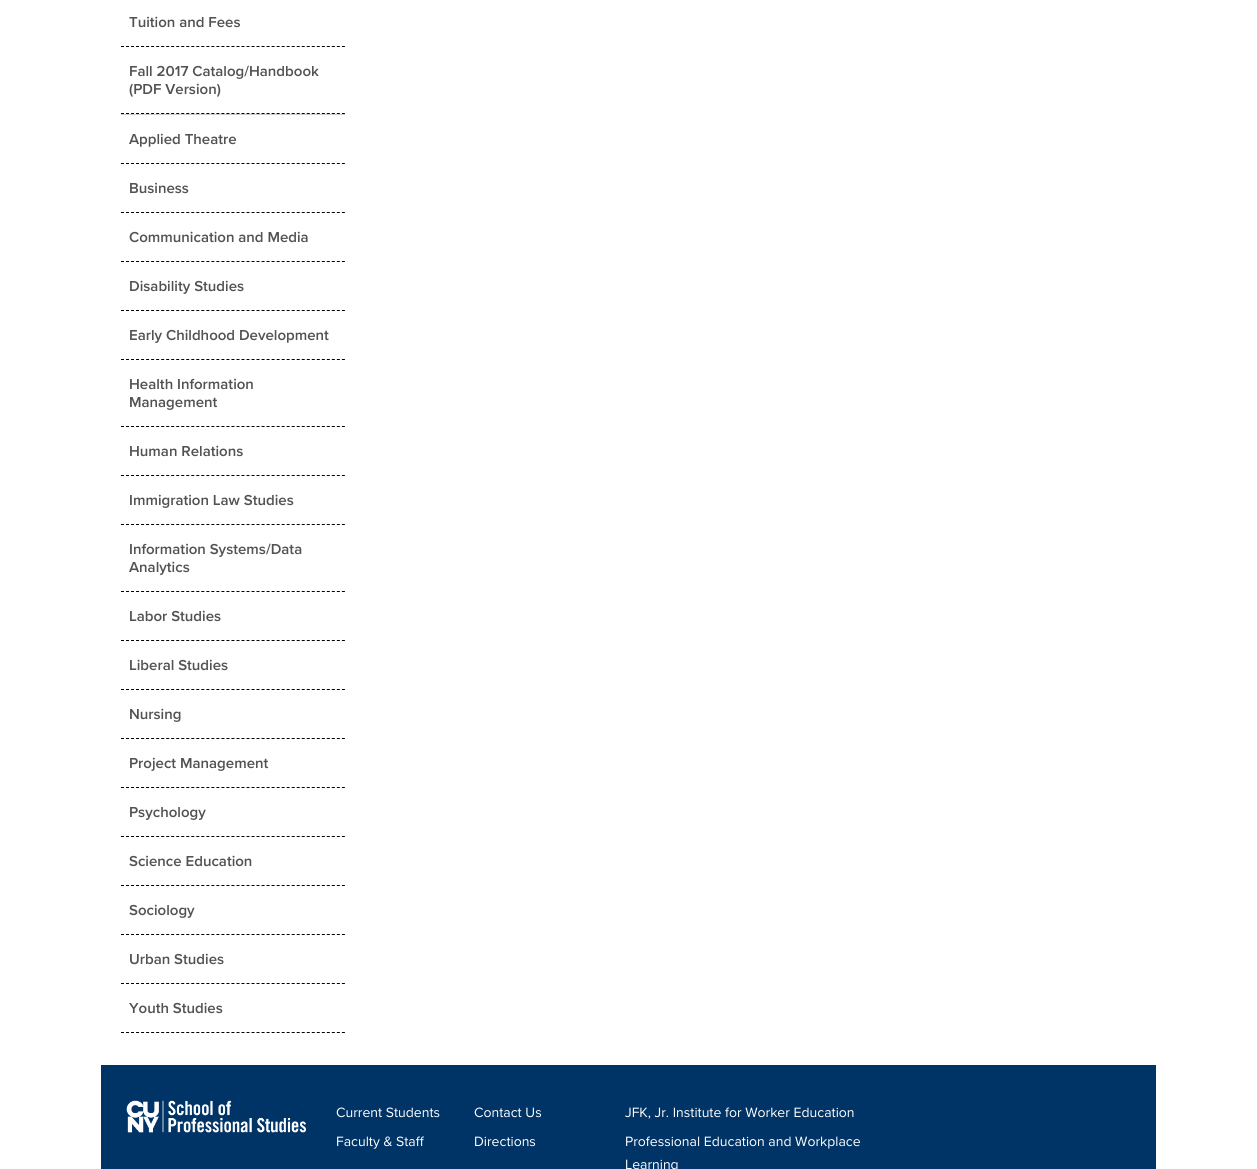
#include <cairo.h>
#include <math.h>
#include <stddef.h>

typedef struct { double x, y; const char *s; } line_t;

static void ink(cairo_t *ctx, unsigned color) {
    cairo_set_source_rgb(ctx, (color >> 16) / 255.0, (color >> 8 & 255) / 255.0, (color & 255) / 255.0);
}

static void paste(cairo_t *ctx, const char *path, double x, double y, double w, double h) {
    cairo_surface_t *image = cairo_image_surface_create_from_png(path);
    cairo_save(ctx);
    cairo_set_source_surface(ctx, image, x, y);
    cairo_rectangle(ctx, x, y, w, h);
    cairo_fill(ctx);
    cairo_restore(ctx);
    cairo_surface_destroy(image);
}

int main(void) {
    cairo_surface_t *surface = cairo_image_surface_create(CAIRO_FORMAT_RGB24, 1257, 1169);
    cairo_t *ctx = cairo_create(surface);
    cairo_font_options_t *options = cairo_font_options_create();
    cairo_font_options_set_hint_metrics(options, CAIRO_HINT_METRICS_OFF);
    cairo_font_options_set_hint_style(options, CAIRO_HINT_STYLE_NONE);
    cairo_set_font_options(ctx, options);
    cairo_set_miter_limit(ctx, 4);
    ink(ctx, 0xFFFFFF);
    cairo_paint(ctx);
    cairo_new_path(ctx);
    cairo_move_to(ctx, 121, 46.5);
    cairo_line_to(ctx, 345, 46.5);
    ink(ctx, 0x000000);
    cairo_set_line_width(ctx, 1);
    cairo_set_dash(ctx, (double[]){3, 2.02}, 2, 0);
    cairo_stroke(ctx);
    cairo_select_font_face(ctx, "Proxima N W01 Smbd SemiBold", CAIRO_FONT_SLANT_NORMAL, CAIRO_FONT_WEIGHT_NORMAL);
    cairo_set_font_size(ctx, 15);
    ink(ctx, 0x525252);
    cairo_move_to(ctx, 129, 27);
    cairo_show_text(ctx, "Tuition and Fees");
    cairo_new_path(ctx);
    cairo_move_to(ctx, 121, 113.5);
    cairo_line_to(ctx, 345, 113.5);
    ink(ctx, 0x000000);
    cairo_stroke(ctx);
    ink(ctx, 0x525252);
    cairo_move_to(ctx, 129, 76);
    cairo_show_text(ctx, "Fall 2017 Catalog/Handbook");
    cairo_move_to(ctx, 129, 94);
    cairo_show_text(ctx, "(PDF Version)");
    ink(ctx, 0xCCCCCC);
    cairo_rectangle(ctx, 121, 114, 224, 1);
    cairo_fill(ctx);
    cairo_new_path(ctx);
    cairo_move_to(ctx, 121, 163.5);
    cairo_line_to(ctx, 345, 163.5);
    ink(ctx, 0x000000);
    cairo_stroke(ctx);
    ink(ctx, 0x525252);
    cairo_move_to(ctx, 129, 144);
    cairo_show_text(ctx, "Applied Theatre");
    cairo_new_path(ctx);
    cairo_move_to(ctx, 121, 212.5);
    cairo_line_to(ctx, 345, 212.5);
    ink(ctx, 0x000000);
    cairo_stroke(ctx);
    ink(ctx, 0x525252);
    cairo_move_to(ctx, 129, 193);
    cairo_show_text(ctx, "Business");
    cairo_new_path(ctx);
    cairo_move_to(ctx, 121, 261.5);
    cairo_line_to(ctx, 345, 261.5);
    ink(ctx, 0x000000);
    cairo_stroke(ctx);
    ink(ctx, 0x525252);
    cairo_move_to(ctx, 129, 242);
    cairo_show_text(ctx, "Communication and Media");
    cairo_new_path(ctx);
    cairo_move_to(ctx, 121, 310.5);
    cairo_line_to(ctx, 345, 310.5);
    ink(ctx, 0x000000);
    cairo_stroke(ctx);
    ink(ctx, 0x525252);
    cairo_move_to(ctx, 129, 291);
    cairo_show_text(ctx, "Disability Studies");
    cairo_new_path(ctx);
    cairo_move_to(ctx, 121, 359.5);
    cairo_line_to(ctx, 345, 359.5);
    ink(ctx, 0x000000);
    cairo_stroke(ctx);
    ink(ctx, 0x525252);
    cairo_move_to(ctx, 129, 340);
    cairo_show_text(ctx, "Early Childhood Development");
    cairo_new_path(ctx);
    cairo_move_to(ctx, 121, 426.5);
    cairo_line_to(ctx, 345, 426.5);
    ink(ctx, 0x000000);
    cairo_stroke(ctx);
    ink(ctx, 0x525252);
    cairo_move_to(ctx, 129, 389);
    cairo_show_text(ctx, "Health Information");
    cairo_move_to(ctx, 129, 407);
    cairo_show_text(ctx, "Management");
    cairo_new_path(ctx);
    cairo_move_to(ctx, 121, 475.5);
    cairo_line_to(ctx, 345, 475.5);
    ink(ctx, 0x000000);
    cairo_stroke(ctx);
    ink(ctx, 0x525252);
    cairo_move_to(ctx, 129, 456);
    cairo_show_text(ctx, "Human Relations");
    cairo_new_path(ctx);
    cairo_move_to(ctx, 121, 524.5);
    cairo_line_to(ctx, 345, 524.5);
    ink(ctx, 0x000000);
    cairo_stroke(ctx);
    ink(ctx, 0x525252);
    cairo_move_to(ctx, 129, 505);
    cairo_show_text(ctx, "Immigration Law Studies");
    cairo_new_path(ctx);
    cairo_move_to(ctx, 121, 591.5);
    cairo_line_to(ctx, 345, 591.5);
    ink(ctx, 0x000000);
    cairo_stroke(ctx);
    ink(ctx, 0x525252);
    cairo_move_to(ctx, 129, 554);
    cairo_show_text(ctx, "Information Systems/Data");
    cairo_move_to(ctx, 129, 572);
    cairo_show_text(ctx, "Analytics");
    cairo_new_path(ctx);
    cairo_move_to(ctx, 121, 640.5);
    cairo_line_to(ctx, 345, 640.5);
    ink(ctx, 0x000000);
    cairo_stroke(ctx);
    ink(ctx, 0x525252);
    cairo_move_to(ctx, 129, 621);
    cairo_show_text(ctx, "Labor Studies");
    cairo_new_path(ctx);
    cairo_move_to(ctx, 121, 689.5);
    cairo_line_to(ctx, 345, 689.5);
    ink(ctx, 0x000000);
    cairo_stroke(ctx);
    ink(ctx, 0x525252);
    cairo_move_to(ctx, 129, 670);
    cairo_show_text(ctx, "Liberal Studies");
    cairo_new_path(ctx);
    cairo_move_to(ctx, 121, 738.5);
    cairo_line_to(ctx, 345, 738.5);
    ink(ctx, 0x000000);
    cairo_stroke(ctx);
    ink(ctx, 0x525252);
    cairo_move_to(ctx, 129, 719);
    cairo_show_text(ctx, "Nursing");
    cairo_new_path(ctx);
    cairo_move_to(ctx, 121, 787.5);
    cairo_line_to(ctx, 345, 787.5);
    ink(ctx, 0x000000);
    cairo_stroke(ctx);
    ink(ctx, 0x525252);
    cairo_move_to(ctx, 129, 768);
    cairo_show_text(ctx, "Project Management");
    cairo_new_path(ctx);
    cairo_move_to(ctx, 121, 836.5);
    cairo_line_to(ctx, 345, 836.5);
    ink(ctx, 0x000000);
    cairo_stroke(ctx);
    ink(ctx, 0x525252);
    cairo_move_to(ctx, 129, 817);
    cairo_show_text(ctx, "Psychology");
    cairo_new_path(ctx);
    cairo_move_to(ctx, 121, 885.5);
    cairo_line_to(ctx, 345, 885.5);
    ink(ctx, 0x000000);
    cairo_stroke(ctx);
    ink(ctx, 0x525252);
    cairo_move_to(ctx, 129, 866);
    cairo_show_text(ctx, "Science Education");
    cairo_new_path(ctx);
    cairo_move_to(ctx, 121, 934.5);
    cairo_line_to(ctx, 345, 934.5);
    ink(ctx, 0x000000);
    cairo_stroke(ctx);
    ink(ctx, 0x525252);
    cairo_move_to(ctx, 129, 915);
    cairo_show_text(ctx, "Sociology");
    cairo_new_path(ctx);
    cairo_move_to(ctx, 121, 983.5);
    cairo_line_to(ctx, 345, 983.5);
    ink(ctx, 0x000000);
    cairo_stroke(ctx);
    ink(ctx, 0x525252);
    cairo_move_to(ctx, 129, 964);
    cairo_show_text(ctx, "Urban Studies");
    cairo_new_path(ctx);
    cairo_move_to(ctx, 121, 1032.5);
    cairo_line_to(ctx, 345, 1032.5);
    ink(ctx, 0x000000);
    cairo_stroke(ctx);
    ink(ctx, 0x525252);
    cairo_move_to(ctx, 129, 1013);
    cairo_show_text(ctx, "Youth Studies");
    ink(ctx, 0x003366);
    cairo_rectangle(ctx, 101, 1065, 1055, 104);
    cairo_fill(ctx);
    paste(ctx, "media/1.png", 126, 1100, 180, 33);
    cairo_select_font_face(ctx, "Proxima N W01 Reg", CAIRO_FONT_SLANT_NORMAL, CAIRO_FONT_WEIGHT_NORMAL);
    cairo_set_font_size(ctx, 14);
    ink(ctx, 0xFFFFFF);
    {
        static const line_t items[] = {
            {336, 1117, "Current Students"},
            {474, 1117, "Contact Us"},
            {336, 1146, "Faculty & Staff"},
            {474, 1146, "Directions"},
            {625, 1117, "JFK, Jr. Institute for Worker Education"},
            {625, 1146, "Professional Education and Workplace"},
            {625, 1169, "Learning"},
        };
        for (size_t i = 0; i < sizeof items / sizeof *items; i++) {
            cairo_move_to(ctx, items[i].x, items[i].y);
            cairo_show_text(ctx, items[i].s);
        }
    }
    cairo_surface_write_to_png(surface, "image.png");
    cairo_font_options_destroy(options);
    cairo_destroy(ctx);
    cairo_surface_destroy(surface);
    return 0;
}
